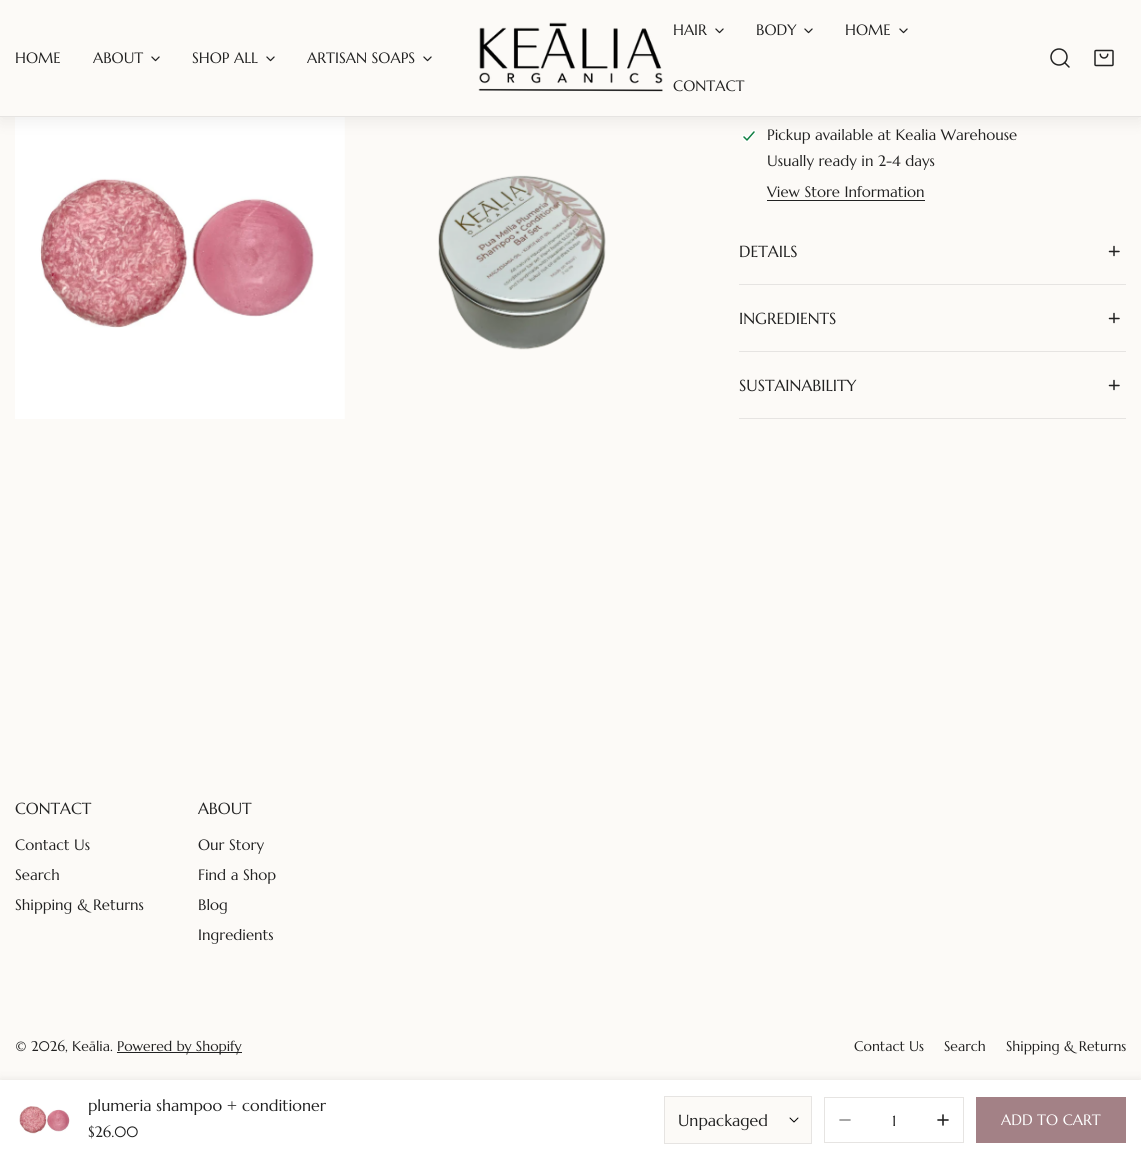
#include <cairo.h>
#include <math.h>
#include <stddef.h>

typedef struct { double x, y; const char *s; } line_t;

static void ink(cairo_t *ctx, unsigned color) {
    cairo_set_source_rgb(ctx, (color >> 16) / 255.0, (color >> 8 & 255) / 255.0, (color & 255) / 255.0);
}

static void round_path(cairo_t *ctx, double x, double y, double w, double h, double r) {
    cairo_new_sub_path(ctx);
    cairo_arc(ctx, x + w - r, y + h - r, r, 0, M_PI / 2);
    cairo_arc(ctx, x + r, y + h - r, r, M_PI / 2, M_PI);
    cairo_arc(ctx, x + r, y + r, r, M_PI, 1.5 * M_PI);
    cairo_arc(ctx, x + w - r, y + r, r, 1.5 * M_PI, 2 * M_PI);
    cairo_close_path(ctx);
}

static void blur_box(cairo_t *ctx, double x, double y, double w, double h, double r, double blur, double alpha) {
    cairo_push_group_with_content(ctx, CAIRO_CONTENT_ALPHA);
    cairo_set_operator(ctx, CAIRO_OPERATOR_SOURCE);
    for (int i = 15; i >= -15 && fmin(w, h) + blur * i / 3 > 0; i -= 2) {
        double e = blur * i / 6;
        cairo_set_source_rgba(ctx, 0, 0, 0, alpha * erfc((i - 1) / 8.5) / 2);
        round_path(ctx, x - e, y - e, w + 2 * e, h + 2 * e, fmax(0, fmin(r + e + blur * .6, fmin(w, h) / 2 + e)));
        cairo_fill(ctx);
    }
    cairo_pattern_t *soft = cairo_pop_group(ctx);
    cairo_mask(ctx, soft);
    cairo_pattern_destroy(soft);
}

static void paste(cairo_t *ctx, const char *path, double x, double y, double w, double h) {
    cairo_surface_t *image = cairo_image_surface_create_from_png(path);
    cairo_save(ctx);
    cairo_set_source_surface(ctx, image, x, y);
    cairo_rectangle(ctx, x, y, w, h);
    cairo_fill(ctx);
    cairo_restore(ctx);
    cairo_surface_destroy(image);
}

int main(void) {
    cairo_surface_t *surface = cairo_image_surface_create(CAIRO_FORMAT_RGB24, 1141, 1160);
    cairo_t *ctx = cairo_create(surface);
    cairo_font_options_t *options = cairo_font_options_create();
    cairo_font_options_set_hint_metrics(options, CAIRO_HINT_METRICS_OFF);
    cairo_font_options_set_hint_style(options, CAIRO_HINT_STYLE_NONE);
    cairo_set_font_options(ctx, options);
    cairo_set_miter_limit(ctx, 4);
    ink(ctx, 0xFCFAF7);
    cairo_paint(ctx);
    paste(ctx, "media/4.png", 15, 117, 330, 302);
    paste(ctx, "media/6.png", 742, 130, 14, 12);
    ink(ctx, 0x000000);
    blur_box(ctx, 0, 4, 1141, 117, 0, 9, 0.07);
    ink(ctx, 0xFCFAF7);
    cairo_rectangle(ctx, 0, 0, 1141, 116);
    cairo_fill(ctx);
    ink(ctx, 0xE6E4E2);
    cairo_rectangle(ctx, 0, 116, 1141, 1);
    cairo_fill(ctx);
    cairo_select_font_face(ctx, "Marcellus", CAIRO_FONT_SLANT_NORMAL, CAIRO_FONT_WEIGHT_NORMAL);
    cairo_set_font_size(ctx, 15);
    ink(ctx, 0x222222);
    cairo_move_to(ctx, 15, 63);
    cairo_show_text(ctx, "HOME");
    cairo_move_to(ctx, 93, 63);
    cairo_show_text(ctx, "ABOUT");
    paste(ctx, "media/1.png", 151, 56, 9, 6);
    cairo_move_to(ctx, 192, 63);
    cairo_show_text(ctx, "SHOP ALL");
    paste(ctx, "media/1.png", 266, 56, 9, 6);
    cairo_move_to(ctx, 307, 63);
    cairo_show_text(ctx, "ARTISAN SOAPS");
    paste(ctx, "media/1.png", 423, 56, 9, 6);
    paste(ctx, "media/2.png", 478, 22, 185, 70);
    cairo_move_to(ctx, 673, 35);
    cairo_show_text(ctx, "HAIR");
    paste(ctx, "media/1.png", 715, 28, 9, 6);
    cairo_move_to(ctx, 756, 35);
    cairo_show_text(ctx, "BODY");
    paste(ctx, "media/1.png", 804, 28, 9, 6);
    cairo_move_to(ctx, 845, 35);
    cairo_show_text(ctx, "HOME");
    paste(ctx, "media/1.png", 899, 28, 9, 6);
    cairo_move_to(ctx, 673, 91);
    cairo_show_text(ctx, "CONTACT");
    cairo_new_path(ctx);
    cairo_arc(ctx, 1059, 57, 8, 0, 2 * M_PI);
    cairo_set_line_width(ctx, 1.5);
    cairo_stroke(ctx);
    cairo_new_path(ctx);
    cairo_move_to(ctx, 1069, 67);
    cairo_line_to(ctx, 1064.5, 62.5);
    cairo_set_line_cap(ctx, CAIRO_LINE_CAP_ROUND);
    cairo_set_line_join(ctx, CAIRO_LINE_JOIN_ROUND);
    cairo_stroke(ctx);
    paste(ctx, "media/3.png", 1094, 49, 20, 18);
    paste(ctx, "media/5.png", 438, 175, 168, 175);
    {
        static const line_t items[] = {
            {767, 140, "Pickup available at Kealia Warehouse"},
            {767, 166, "Usually ready in 2-4 days"},
            {767, 197, "View Store Information"},
        };
        for (size_t i = 0; i < sizeof items / sizeof *items; i++) {
            cairo_move_to(ctx, items[i].x, items[i].y);
            cairo_show_text(ctx, items[i].s);
        }
    }
    cairo_rectangle(ctx, 767, 200, 158, 1);
    cairo_fill(ctx);
    ink(ctx, 0xE6E4E2);
    cairo_rectangle(ctx, 739, 284, 387, 1);
    cairo_fill(ctx);
    cairo_set_font_size(ctx, 16);
    ink(ctx, 0x222222);
    cairo_move_to(ctx, 739, 257);
    cairo_show_text(ctx, "DETAILS");
    cairo_new_path(ctx);
    cairo_move_to(ctx, 1114, 246.5);
    cairo_line_to(ctx, 1114, 255.5);
    cairo_stroke(ctx);
    cairo_save(ctx);
    cairo_new_path(ctx);
    cairo_move_to(ctx, 1120, 250.5);
    cairo_line_to(ctx, 1120, 252.5);
    cairo_line_to(ctx, 1108, 252.5);
    cairo_line_to(ctx, 1108, 250.5);
    cairo_close_path(ctx);
    cairo_clip(ctx);
    cairo_new_path(ctx);
    cairo_move_to(ctx, 1119, 251.5);
    cairo_line_to(ctx, 1109.5, 251.5);
    cairo_stroke(ctx);
    cairo_restore(ctx);
    ink(ctx, 0xE6E4E2);
    cairo_rectangle(ctx, 739, 351, 387, 1);
    cairo_fill(ctx);
    ink(ctx, 0x222222);
    cairo_move_to(ctx, 739, 324);
    cairo_show_text(ctx, "INGREDIENTS");
    cairo_new_path(ctx);
    cairo_move_to(ctx, 1114, 313.5);
    cairo_line_to(ctx, 1114, 322.5);
    cairo_stroke(ctx);
    cairo_save(ctx);
    cairo_new_path(ctx);
    cairo_move_to(ctx, 1120, 317.5);
    cairo_line_to(ctx, 1120, 319.5);
    cairo_line_to(ctx, 1108, 319.5);
    cairo_line_to(ctx, 1108, 317.5);
    cairo_close_path(ctx);
    cairo_clip(ctx);
    cairo_new_path(ctx);
    cairo_move_to(ctx, 1119, 318.5);
    cairo_line_to(ctx, 1109.5, 318.5);
    cairo_stroke(ctx);
    cairo_restore(ctx);
    ink(ctx, 0xE6E4E2);
    cairo_rectangle(ctx, 739, 418, 387, 1);
    cairo_fill(ctx);
    ink(ctx, 0x222222);
    cairo_move_to(ctx, 739, 391);
    cairo_show_text(ctx, "SUSTAINABILITY");
    cairo_new_path(ctx);
    cairo_move_to(ctx, 1114, 380.5);
    cairo_line_to(ctx, 1114, 389.5);
    cairo_stroke(ctx);
    cairo_save(ctx);
    cairo_new_path(ctx);
    cairo_move_to(ctx, 1120, 384.5);
    cairo_line_to(ctx, 1120, 386.5);
    cairo_line_to(ctx, 1108, 386.5);
    cairo_line_to(ctx, 1108, 384.5);
    cairo_close_path(ctx);
    cairo_clip(ctx);
    cairo_new_path(ctx);
    cairo_move_to(ctx, 1119, 385.5);
    cairo_line_to(ctx, 1109.5, 385.5);
    cairo_stroke(ctx);
    cairo_restore(ctx);
    cairo_move_to(ctx, 15, 814);
    cairo_show_text(ctx, "CONTACT");
    cairo_set_font_size(ctx, 15);
    {
        static const line_t items[] = {
            {15, 850, "Contact Us"},
            {15, 880, "Search"},
            {15, 910, "Shipping & Returns"},
        };
        for (size_t i = 0; i < sizeof items / sizeof *items; i++) {
            cairo_move_to(ctx, items[i].x, items[i].y);
            cairo_show_text(ctx, items[i].s);
        }
    }
    cairo_set_font_size(ctx, 16);
    cairo_move_to(ctx, 198, 814);
    cairo_show_text(ctx, "ABOUT");
    cairo_set_font_size(ctx, 15);
    {
        static const line_t items[] = {
            {198, 850, "Our Story"},
            {198, 880, "Find a Shop"},
            {198, 910, "Blog"},
            {198, 940, "Ingredients"},
        };
        for (size_t i = 0; i < sizeof items / sizeof *items; i++) {
            cairo_move_to(ctx, items[i].x, items[i].y);
            cairo_show_text(ctx, items[i].s);
        }
    }
    cairo_set_font_size(ctx, 14);
    cairo_move_to(ctx, 15, 1051);
    cairo_show_text(ctx, "© 2026, Keālia.");
    cairo_rectangle(ctx, 117, 1052, 125, 1);
    cairo_fill(ctx);
    {
        static const line_t items[] = {
            {117, 1051, "Powered by Shopify"},
            {854, 1051, "Contact Us"},
            {944, 1051, "Search"},
            {1006, 1051, "Shipping & Returns"},
        };
        for (size_t i = 0; i < sizeof items / sizeof *items; i++) {
            cairo_move_to(ctx, items[i].x, items[i].y);
            cairo_show_text(ctx, items[i].s);
        }
    }
    ink(ctx, 0x000000);
    blur_box(ctx, 0, 1080, 1141, 80, 0, 5, 0.09);
    ink(ctx, 0xFFFFFF);
    cairo_rectangle(ctx, 0, 1080, 1141, 80);
    cairo_fill(ctx);
    paste(ctx, "media/7.png", 19, 1106, 51, 28);
    cairo_set_font_size(ctx, 16);
    ink(ctx, 0x222222);
    cairo_move_to(ctx, 88, 1111);
    cairo_show_text(ctx, "plumeria shampoo + conditioner");
    cairo_set_font_size(ctx, 15);
    cairo_move_to(ctx, 88, 1137);
    cairo_show_text(ctx, "$26.00");
    ink(ctx, 0xFCFAF7);
    cairo_rectangle(ctx, 665, 1097, 146, 46);
    cairo_fill(ctx);
    paste(ctx, "media/8.png", 789, 1117, 10, 6);
    cairo_rectangle(ctx, 664.5, 1096.5, 147, 47);
    ink(ctx, 0xE6E4E2);
    cairo_set_line_width(ctx, 1);
    cairo_set_line_cap(ctx, CAIRO_LINE_CAP_BUTT);
    cairo_set_line_join(ctx, CAIRO_LINE_JOIN_MITER);
    cairo_stroke(ctx);
    cairo_set_font_size(ctx, 16);
    ink(ctx, 0x222222);
    cairo_move_to(ctx, 678, 1126);
    cairo_show_text(ctx, "Unpackaged");
    cairo_rectangle(ctx, 824.5, 1097.5, 139, 45);
    ink(ctx, 0xE6E4E2);
    cairo_stroke(ctx);
    cairo_new_path(ctx);
    cairo_move_to(ctx, 840, 1120);
    cairo_line_to(ctx, 850, 1120);
    ink(ctx, 0x919191);
    cairo_set_line_width(ctx, 1.6);
    cairo_set_line_cap(ctx, CAIRO_LINE_CAP_ROUND);
    cairo_set_line_join(ctx, CAIRO_LINE_JOIN_ROUND);
    cairo_stroke(ctx);
    cairo_set_font_size(ctx, 15);
    ink(ctx, 0x222222);
    cairo_move_to(ctx, 892, 1126);
    cairo_show_text(ctx, "1");
    cairo_new_path(ctx);
    cairo_move_to(ctx, 938, 1120);
    cairo_line_to(ctx, 948, 1120);
    cairo_move_to(ctx, 943, 1115);
    cairo_line_to(ctx, 943, 1125);
    cairo_stroke(ctx);
    ink(ctx, 0xA38186);
    cairo_rectangle(ctx, 976, 1097, 150, 46);
    cairo_fill(ctx);
    ink(ctx, 0xFFFFFF);
    cairo_move_to(ctx, 1001, 1125);
    cairo_show_text(ctx, "ADD TO CART");
    cairo_surface_write_to_png(surface, "image.png");
    cairo_font_options_destroy(options);
    cairo_destroy(ctx);
    cairo_surface_destroy(surface);
    return 0;
}
